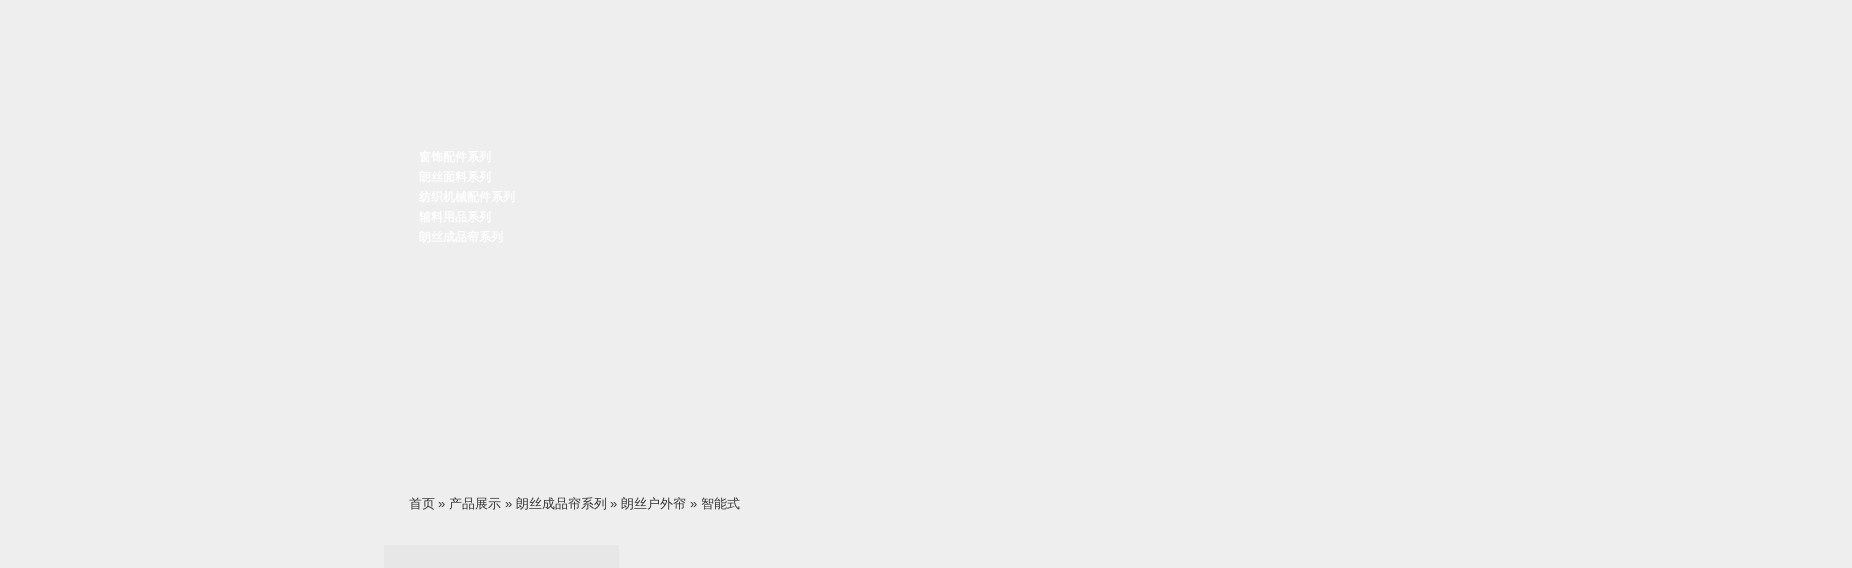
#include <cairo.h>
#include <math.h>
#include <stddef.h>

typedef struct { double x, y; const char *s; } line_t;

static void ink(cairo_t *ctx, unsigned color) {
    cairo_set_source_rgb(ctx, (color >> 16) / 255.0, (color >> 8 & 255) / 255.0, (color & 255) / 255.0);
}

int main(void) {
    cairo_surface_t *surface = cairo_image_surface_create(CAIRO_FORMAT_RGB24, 1852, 568);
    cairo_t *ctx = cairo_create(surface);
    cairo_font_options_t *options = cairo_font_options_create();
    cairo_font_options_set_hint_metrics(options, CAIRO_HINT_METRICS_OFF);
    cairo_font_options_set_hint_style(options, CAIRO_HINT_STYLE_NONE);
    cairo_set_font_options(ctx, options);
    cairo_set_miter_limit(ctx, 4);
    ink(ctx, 0xEEEEEE);
    cairo_paint(ctx);
    cairo_select_font_face(ctx, "WenQuanYi Zen Hei", CAIRO_FONT_SLANT_NORMAL, CAIRO_FONT_WEIGHT_BOLD);
    cairo_set_font_size(ctx, 12);
    ink(ctx, 0xFFFFFF);
    {
        static const line_t items[] = {
            {419, 161, "窗饰配件系列"},
            {419, 181, "朗丝面料系列"},
            {419, 201, "纺织机械配件系列"},
            {419, 221, "辅料用品系列"},
            {419, 241, "朗丝成品帘系列"},
        };
        for (size_t i = 0; i < sizeof items / sizeof *items; i++) {
            cairo_move_to(ctx, items[i].x, items[i].y);
            cairo_show_text(ctx, items[i].s);
        }
    }
    cairo_select_font_face(ctx, "WenQuanYi Zen Hei Medium", CAIRO_FONT_SLANT_NORMAL, CAIRO_FONT_WEIGHT_NORMAL);
    cairo_set_font_size(ctx, 13);
    ink(ctx, 0x333333);
    cairo_move_to(ctx, 409, 508);
    cairo_show_text(ctx, "首页");
    cairo_select_font_face(ctx, "Liberation Sans", CAIRO_FONT_SLANT_NORMAL, CAIRO_FONT_WEIGHT_NORMAL);
    cairo_move_to(ctx, 438, 508);
    cairo_show_text(ctx, "»");
    cairo_select_font_face(ctx, "WenQuanYi Zen Hei Medium", CAIRO_FONT_SLANT_NORMAL, CAIRO_FONT_WEIGHT_NORMAL);
    cairo_move_to(ctx, 449, 508);
    cairo_show_text(ctx, "产品展示");
    cairo_select_font_face(ctx, "Liberation Sans", CAIRO_FONT_SLANT_NORMAL, CAIRO_FONT_WEIGHT_NORMAL);
    cairo_move_to(ctx, 505, 508);
    cairo_show_text(ctx, "»");
    cairo_select_font_face(ctx, "WenQuanYi Zen Hei Medium", CAIRO_FONT_SLANT_NORMAL, CAIRO_FONT_WEIGHT_NORMAL);
    cairo_move_to(ctx, 516, 508);
    cairo_show_text(ctx, "朗丝成品帘系列");
    cairo_select_font_face(ctx, "Liberation Sans", CAIRO_FONT_SLANT_NORMAL, CAIRO_FONT_WEIGHT_NORMAL);
    cairo_move_to(ctx, 610, 508);
    cairo_show_text(ctx, "»");
    cairo_select_font_face(ctx, "WenQuanYi Zen Hei Medium", CAIRO_FONT_SLANT_NORMAL, CAIRO_FONT_WEIGHT_NORMAL);
    cairo_move_to(ctx, 621, 508);
    cairo_show_text(ctx, "朗丝户外帘");
    cairo_select_font_face(ctx, "Liberation Sans", CAIRO_FONT_SLANT_NORMAL, CAIRO_FONT_WEIGHT_NORMAL);
    cairo_move_to(ctx, 690, 508);
    cairo_show_text(ctx, "»");
    cairo_select_font_face(ctx, "WenQuanYi Zen Hei Medium", CAIRO_FONT_SLANT_NORMAL, CAIRO_FONT_WEIGHT_NORMAL);
    cairo_move_to(ctx, 701, 508);
    cairo_show_text(ctx, "智能式");
    ink(ctx, 0xE7E7E7);
    cairo_rectangle(ctx, 384, 545, 235, 23);
    cairo_fill(ctx);
    cairo_surface_write_to_png(surface, "image.png");
    cairo_font_options_destroy(options);
    cairo_destroy(ctx);
    cairo_surface_destroy(surface);
    return 0;
}
